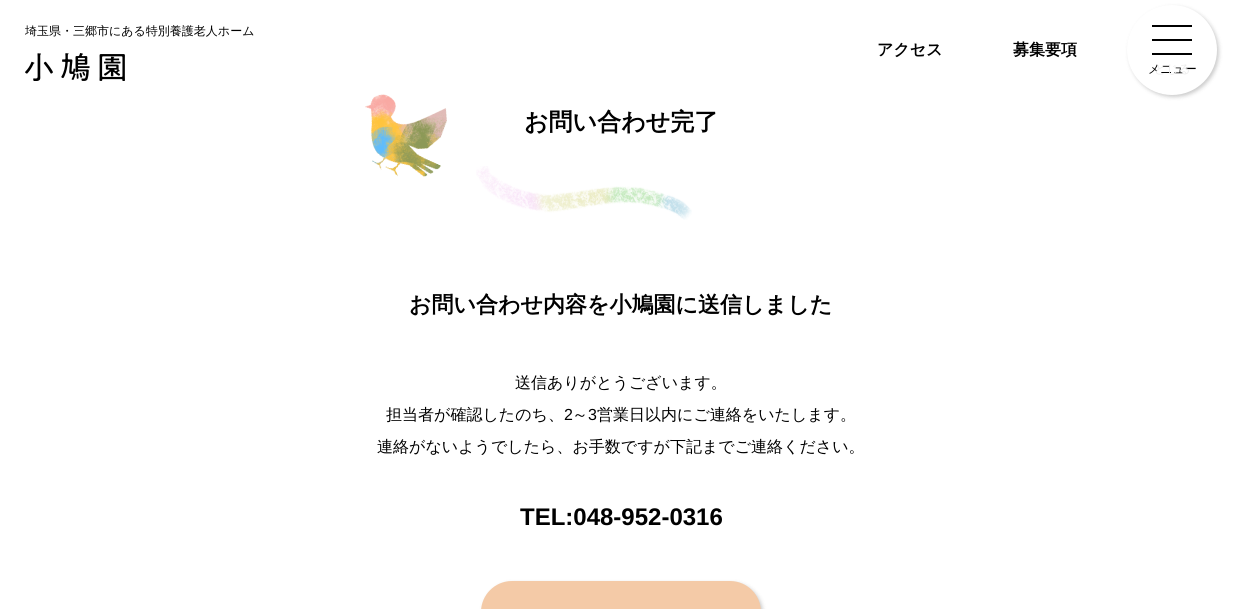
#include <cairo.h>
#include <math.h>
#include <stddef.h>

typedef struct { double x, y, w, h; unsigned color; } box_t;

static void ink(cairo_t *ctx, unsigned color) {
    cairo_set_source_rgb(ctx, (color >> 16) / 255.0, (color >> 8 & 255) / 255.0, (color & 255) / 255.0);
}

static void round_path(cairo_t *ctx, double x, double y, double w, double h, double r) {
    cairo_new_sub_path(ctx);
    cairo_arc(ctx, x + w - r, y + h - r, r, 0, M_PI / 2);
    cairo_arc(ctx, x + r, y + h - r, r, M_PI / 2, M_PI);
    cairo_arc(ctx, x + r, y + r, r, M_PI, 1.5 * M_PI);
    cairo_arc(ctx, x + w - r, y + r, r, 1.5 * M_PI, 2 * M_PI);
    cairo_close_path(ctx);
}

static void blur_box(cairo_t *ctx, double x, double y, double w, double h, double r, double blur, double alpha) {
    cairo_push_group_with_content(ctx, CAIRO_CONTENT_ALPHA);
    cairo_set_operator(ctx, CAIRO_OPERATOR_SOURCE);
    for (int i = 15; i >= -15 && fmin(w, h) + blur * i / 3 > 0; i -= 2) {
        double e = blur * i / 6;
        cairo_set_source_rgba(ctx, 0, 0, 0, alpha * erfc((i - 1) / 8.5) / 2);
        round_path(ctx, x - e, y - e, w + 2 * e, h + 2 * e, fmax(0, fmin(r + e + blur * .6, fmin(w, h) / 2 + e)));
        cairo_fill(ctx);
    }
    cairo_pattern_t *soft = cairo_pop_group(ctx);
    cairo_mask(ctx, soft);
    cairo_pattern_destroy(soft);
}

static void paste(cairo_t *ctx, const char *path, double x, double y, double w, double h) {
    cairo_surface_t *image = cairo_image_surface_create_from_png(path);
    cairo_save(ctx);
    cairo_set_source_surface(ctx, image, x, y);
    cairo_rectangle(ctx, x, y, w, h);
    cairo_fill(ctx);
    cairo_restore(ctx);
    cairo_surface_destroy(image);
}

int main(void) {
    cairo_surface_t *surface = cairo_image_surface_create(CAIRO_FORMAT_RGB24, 1242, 609);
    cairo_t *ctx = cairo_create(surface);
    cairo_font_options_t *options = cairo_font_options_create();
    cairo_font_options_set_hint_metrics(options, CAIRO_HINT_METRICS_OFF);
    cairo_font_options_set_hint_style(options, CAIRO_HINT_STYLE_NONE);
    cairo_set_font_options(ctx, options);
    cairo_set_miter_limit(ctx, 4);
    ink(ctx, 0xFFFFFF);
    cairo_paint(ctx);
    cairo_select_font_face(ctx, "WenQuanYi Zen Hei Medium", CAIRO_FONT_SLANT_NORMAL, CAIRO_FONT_WEIGHT_NORMAL);
    cairo_set_font_size(ctx, 12);
    ink(ctx, 0x000000);
    cairo_move_to(ctx, 25, 35);
    cairo_show_text(ctx, "埼玉県・三郷市にある特別養護老人ホーム");
    paste(ctx, "media/1.png", 25, 53, 100, 28);
    cairo_select_font_face(ctx, "WenQuanYi Zen Hei", CAIRO_FONT_SLANT_NORMAL, CAIRO_FONT_WEIGHT_BOLD);
    cairo_set_font_size(ctx, 16);
    cairo_move_to(ctx, 877, 55);
    cairo_show_text(ctx, "アクセス");
    cairo_move_to(ctx, 1013, 55);
    cairo_show_text(ctx, "募集要項");
    ink(ctx, 0x000000);
    blur_box(ctx, 1129, 7, 90, 90, 45, 2, 0.2);
    ink(ctx, 0xFFFFFF);
    cairo_arc(ctx, 1172, 50, 45, 0, 2 * M_PI);
    cairo_fill(ctx);
    {
        static const box_t items[] = {
            {1152, 25, 40, 2, 0x000000},
            {1152, 39, 40, 2, 0x000000},
            {1152, 53, 40, 2, 0x000000},
        };
        for (size_t i = 0; i < sizeof items / sizeof *items; i++) {
            ink(ctx, items[i].color);
            cairo_rectangle(ctx, items[i].x, items[i].y, items[i].w, items[i].h);
            cairo_fill(ctx);
        }
    }
    cairo_select_font_face(ctx, "WenQuanYi Zen Hei Medium", CAIRO_FONT_SLANT_NORMAL, CAIRO_FONT_WEIGHT_NORMAL);
    cairo_set_font_size(ctx, 12);
    cairo_move_to(ctx, 1148, 73);
    cairo_show_text(ctx, "メニュー");
    ink(ctx, 0xECECEC);
    cairo_move_to(ctx, 1154, 73);
    cairo_show_text(ctx, "とじる");
    paste(ctx, "media/2.png", 365, 94, 82, 83);
    cairo_select_font_face(ctx, "WenQuanYi Zen Hei", CAIRO_FONT_SLANT_NORMAL, CAIRO_FONT_WEIGHT_BOLD);
    cairo_set_font_size(ctx, 24);
    ink(ctx, 0x000000);
    cairo_move_to(ctx, 524, 130);
    cairo_show_text(ctx, "お問い合わせ完了");
    paste(ctx, "media/3.png", 476, 166, 216, 54);
    cairo_set_font_size(ctx, 22);
    cairo_move_to(ctx, 409, 312);
    cairo_show_text(ctx, "お問い合わせ内容を小鳩園に送信しました");
    cairo_select_font_face(ctx, "WenQuanYi Zen Hei Medium", CAIRO_FONT_SLANT_NORMAL, CAIRO_FONT_WEIGHT_NORMAL);
    cairo_set_font_size(ctx, 16);
    cairo_move_to(ctx, 515, 388);
    cairo_show_text(ctx, "送信ありがとうございます。");
    cairo_move_to(ctx, 386, 420);
    cairo_show_text(ctx, "担当者が確認したのち、");
    cairo_select_font_face(ctx, "Liberation Sans", CAIRO_FONT_SLANT_NORMAL, CAIRO_FONT_WEIGHT_NORMAL);
    cairo_move_to(ctx, 564, 420);
    cairo_show_text(ctx, "2");
    cairo_select_font_face(ctx, "WenQuanYi Zen Hei Medium", CAIRO_FONT_SLANT_NORMAL, CAIRO_FONT_WEIGHT_NORMAL);
    cairo_move_to(ctx, 572, 420);
    cairo_show_text(ctx, "～");
    cairo_select_font_face(ctx, "Liberation Sans", CAIRO_FONT_SLANT_NORMAL, CAIRO_FONT_WEIGHT_NORMAL);
    cairo_move_to(ctx, 588, 420);
    cairo_show_text(ctx, "3");
    cairo_select_font_face(ctx, "WenQuanYi Zen Hei Medium", CAIRO_FONT_SLANT_NORMAL, CAIRO_FONT_WEIGHT_NORMAL);
    cairo_move_to(ctx, 597, 420);
    cairo_show_text(ctx, "営業日以内にご連絡をいたします。");
    cairo_move_to(ctx, 377, 452);
    cairo_show_text(ctx, "連絡がないようでしたら、お手数ですが下記までご連絡ください。");
    cairo_select_font_face(ctx, "Liberation Sans", CAIRO_FONT_SLANT_NORMAL, CAIRO_FONT_WEIGHT_BOLD);
    cairo_set_font_size(ctx, 24);
    cairo_move_to(ctx, 520, 525);
    cairo_show_text(ctx, "TEL:048-952-0316");
    ink(ctx, 0x000000);
    blur_box(ctx, 483, 583, 280, 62, 31, 2, 0.2);
    ink(ctx, 0xF4CAA7);
    round_path(ctx, 481, 581, 280, 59, 31);
    cairo_fill(ctx);
    cairo_surface_write_to_png(surface, "image.png");
    cairo_font_options_destroy(options);
    cairo_destroy(ctx);
    cairo_surface_destroy(surface);
    return 0;
}
